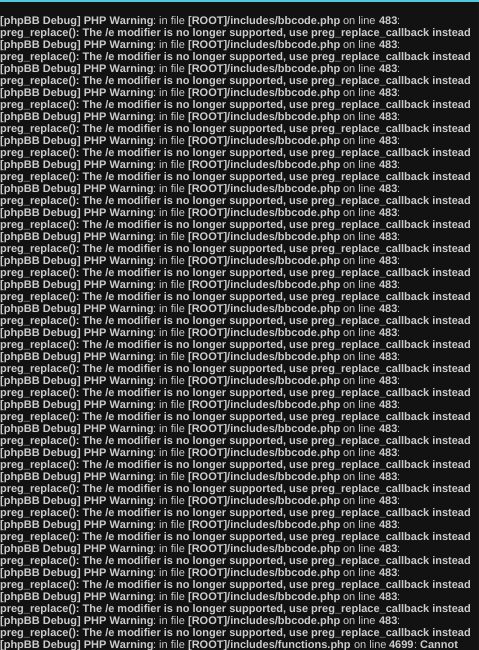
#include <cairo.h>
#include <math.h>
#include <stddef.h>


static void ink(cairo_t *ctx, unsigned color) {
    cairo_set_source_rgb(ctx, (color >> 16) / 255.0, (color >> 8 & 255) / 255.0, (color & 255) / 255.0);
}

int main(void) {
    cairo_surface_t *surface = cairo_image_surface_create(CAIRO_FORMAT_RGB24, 479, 650);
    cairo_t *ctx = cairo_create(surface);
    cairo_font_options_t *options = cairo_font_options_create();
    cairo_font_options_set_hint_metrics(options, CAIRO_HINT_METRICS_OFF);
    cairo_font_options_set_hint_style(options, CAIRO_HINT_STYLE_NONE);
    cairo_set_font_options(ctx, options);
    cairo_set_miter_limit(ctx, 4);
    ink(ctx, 0x161616);
    cairo_paint(ctx);
    ink(ctx, 0x121212);
    cairo_rectangle(ctx, 0, 2, 478, 648);
    cairo_fill(ctx);
    ink(ctx, 0x51C9E0);
    cairo_rectangle(ctx, 0, 0, 479, 2);
    cairo_fill(ctx);
    cairo_select_font_face(ctx, "Liberation Sans", CAIRO_FONT_SLANT_NORMAL, CAIRO_FONT_WEIGHT_BOLD);
    cairo_set_font_size(ctx, 11);
    ink(ctx, 0xCCCCCC);
    cairo_move_to(ctx, 0, 24);
    cairo_show_text(ctx, "[phpBB Debug] PHP Warning");
    cairo_select_font_face(ctx, "Liberation Sans", CAIRO_FONT_SLANT_NORMAL, CAIRO_FONT_WEIGHT_NORMAL);
    cairo_move_to(ctx, 153, 24);
    cairo_show_text(ctx, ": in file");
    cairo_select_font_face(ctx, "Liberation Sans", CAIRO_FONT_SLANT_NORMAL, CAIRO_FONT_WEIGHT_BOLD);
    cairo_move_to(ctx, 188, 24);
    cairo_show_text(ctx, "[ROOT]/includes/bbcode.php");
    cairo_select_font_face(ctx, "Liberation Sans", CAIRO_FONT_SLANT_NORMAL, CAIRO_FONT_WEIGHT_NORMAL);
    cairo_move_to(ctx, 343, 24);
    cairo_show_text(ctx, "on line");
    cairo_select_font_face(ctx, "Liberation Sans", CAIRO_FONT_SLANT_NORMAL, CAIRO_FONT_WEIGHT_BOLD);
    cairo_move_to(ctx, 379, 24);
    cairo_show_text(ctx, "483");
    cairo_select_font_face(ctx, "Liberation Sans", CAIRO_FONT_SLANT_NORMAL, CAIRO_FONT_WEIGHT_NORMAL);
    cairo_move_to(ctx, 397, 24);
    cairo_show_text(ctx, ":");
    cairo_select_font_face(ctx, "Liberation Sans", CAIRO_FONT_SLANT_NORMAL, CAIRO_FONT_WEIGHT_BOLD);
    cairo_move_to(ctx, 0, 36);
    cairo_show_text(ctx, "preg_replace(): The /e modifier is no longer supported, use preg_replace_callback instead");
    cairo_move_to(ctx, 0, 48);
    cairo_show_text(ctx, "[phpBB Debug] PHP Warning");
    cairo_select_font_face(ctx, "Liberation Sans", CAIRO_FONT_SLANT_NORMAL, CAIRO_FONT_WEIGHT_NORMAL);
    cairo_move_to(ctx, 153, 48);
    cairo_show_text(ctx, ": in file");
    cairo_select_font_face(ctx, "Liberation Sans", CAIRO_FONT_SLANT_NORMAL, CAIRO_FONT_WEIGHT_BOLD);
    cairo_move_to(ctx, 188, 48);
    cairo_show_text(ctx, "[ROOT]/includes/bbcode.php");
    cairo_select_font_face(ctx, "Liberation Sans", CAIRO_FONT_SLANT_NORMAL, CAIRO_FONT_WEIGHT_NORMAL);
    cairo_move_to(ctx, 343, 48);
    cairo_show_text(ctx, "on line");
    cairo_select_font_face(ctx, "Liberation Sans", CAIRO_FONT_SLANT_NORMAL, CAIRO_FONT_WEIGHT_BOLD);
    cairo_move_to(ctx, 379, 48);
    cairo_show_text(ctx, "483");
    cairo_select_font_face(ctx, "Liberation Sans", CAIRO_FONT_SLANT_NORMAL, CAIRO_FONT_WEIGHT_NORMAL);
    cairo_move_to(ctx, 397, 48);
    cairo_show_text(ctx, ":");
    cairo_select_font_face(ctx, "Liberation Sans", CAIRO_FONT_SLANT_NORMAL, CAIRO_FONT_WEIGHT_BOLD);
    cairo_move_to(ctx, 0, 60);
    cairo_show_text(ctx, "preg_replace(): The /e modifier is no longer supported, use preg_replace_callback instead");
    cairo_move_to(ctx, 0, 72);
    cairo_show_text(ctx, "[phpBB Debug] PHP Warning");
    cairo_select_font_face(ctx, "Liberation Sans", CAIRO_FONT_SLANT_NORMAL, CAIRO_FONT_WEIGHT_NORMAL);
    cairo_move_to(ctx, 153, 72);
    cairo_show_text(ctx, ": in file");
    cairo_select_font_face(ctx, "Liberation Sans", CAIRO_FONT_SLANT_NORMAL, CAIRO_FONT_WEIGHT_BOLD);
    cairo_move_to(ctx, 188, 72);
    cairo_show_text(ctx, "[ROOT]/includes/bbcode.php");
    cairo_select_font_face(ctx, "Liberation Sans", CAIRO_FONT_SLANT_NORMAL, CAIRO_FONT_WEIGHT_NORMAL);
    cairo_move_to(ctx, 343, 72);
    cairo_show_text(ctx, "on line");
    cairo_select_font_face(ctx, "Liberation Sans", CAIRO_FONT_SLANT_NORMAL, CAIRO_FONT_WEIGHT_BOLD);
    cairo_move_to(ctx, 379, 72);
    cairo_show_text(ctx, "483");
    cairo_select_font_face(ctx, "Liberation Sans", CAIRO_FONT_SLANT_NORMAL, CAIRO_FONT_WEIGHT_NORMAL);
    cairo_move_to(ctx, 397, 72);
    cairo_show_text(ctx, ":");
    cairo_select_font_face(ctx, "Liberation Sans", CAIRO_FONT_SLANT_NORMAL, CAIRO_FONT_WEIGHT_BOLD);
    cairo_move_to(ctx, 0, 84);
    cairo_show_text(ctx, "preg_replace(): The /e modifier is no longer supported, use preg_replace_callback instead");
    cairo_move_to(ctx, 0, 96);
    cairo_show_text(ctx, "[phpBB Debug] PHP Warning");
    cairo_select_font_face(ctx, "Liberation Sans", CAIRO_FONT_SLANT_NORMAL, CAIRO_FONT_WEIGHT_NORMAL);
    cairo_move_to(ctx, 153, 96);
    cairo_show_text(ctx, ": in file");
    cairo_select_font_face(ctx, "Liberation Sans", CAIRO_FONT_SLANT_NORMAL, CAIRO_FONT_WEIGHT_BOLD);
    cairo_move_to(ctx, 188, 96);
    cairo_show_text(ctx, "[ROOT]/includes/bbcode.php");
    cairo_select_font_face(ctx, "Liberation Sans", CAIRO_FONT_SLANT_NORMAL, CAIRO_FONT_WEIGHT_NORMAL);
    cairo_move_to(ctx, 343, 96);
    cairo_show_text(ctx, "on line");
    cairo_select_font_face(ctx, "Liberation Sans", CAIRO_FONT_SLANT_NORMAL, CAIRO_FONT_WEIGHT_BOLD);
    cairo_move_to(ctx, 379, 96);
    cairo_show_text(ctx, "483");
    cairo_select_font_face(ctx, "Liberation Sans", CAIRO_FONT_SLANT_NORMAL, CAIRO_FONT_WEIGHT_NORMAL);
    cairo_move_to(ctx, 397, 96);
    cairo_show_text(ctx, ":");
    cairo_select_font_face(ctx, "Liberation Sans", CAIRO_FONT_SLANT_NORMAL, CAIRO_FONT_WEIGHT_BOLD);
    cairo_move_to(ctx, 0, 108);
    cairo_show_text(ctx, "preg_replace(): The /e modifier is no longer supported, use preg_replace_callback instead");
    cairo_move_to(ctx, 0, 120);
    cairo_show_text(ctx, "[phpBB Debug] PHP Warning");
    cairo_select_font_face(ctx, "Liberation Sans", CAIRO_FONT_SLANT_NORMAL, CAIRO_FONT_WEIGHT_NORMAL);
    cairo_move_to(ctx, 153, 120);
    cairo_show_text(ctx, ": in file");
    cairo_select_font_face(ctx, "Liberation Sans", CAIRO_FONT_SLANT_NORMAL, CAIRO_FONT_WEIGHT_BOLD);
    cairo_move_to(ctx, 188, 120);
    cairo_show_text(ctx, "[ROOT]/includes/bbcode.php");
    cairo_select_font_face(ctx, "Liberation Sans", CAIRO_FONT_SLANT_NORMAL, CAIRO_FONT_WEIGHT_NORMAL);
    cairo_move_to(ctx, 343, 120);
    cairo_show_text(ctx, "on line");
    cairo_select_font_face(ctx, "Liberation Sans", CAIRO_FONT_SLANT_NORMAL, CAIRO_FONT_WEIGHT_BOLD);
    cairo_move_to(ctx, 379, 120);
    cairo_show_text(ctx, "483");
    cairo_select_font_face(ctx, "Liberation Sans", CAIRO_FONT_SLANT_NORMAL, CAIRO_FONT_WEIGHT_NORMAL);
    cairo_move_to(ctx, 397, 120);
    cairo_show_text(ctx, ":");
    cairo_select_font_face(ctx, "Liberation Sans", CAIRO_FONT_SLANT_NORMAL, CAIRO_FONT_WEIGHT_BOLD);
    cairo_move_to(ctx, 0, 132);
    cairo_show_text(ctx, "preg_replace(): The /e modifier is no longer supported, use preg_replace_callback instead");
    cairo_move_to(ctx, 0, 144);
    cairo_show_text(ctx, "[phpBB Debug] PHP Warning");
    cairo_select_font_face(ctx, "Liberation Sans", CAIRO_FONT_SLANT_NORMAL, CAIRO_FONT_WEIGHT_NORMAL);
    cairo_move_to(ctx, 153, 144);
    cairo_show_text(ctx, ": in file");
    cairo_select_font_face(ctx, "Liberation Sans", CAIRO_FONT_SLANT_NORMAL, CAIRO_FONT_WEIGHT_BOLD);
    cairo_move_to(ctx, 188, 144);
    cairo_show_text(ctx, "[ROOT]/includes/bbcode.php");
    cairo_select_font_face(ctx, "Liberation Sans", CAIRO_FONT_SLANT_NORMAL, CAIRO_FONT_WEIGHT_NORMAL);
    cairo_move_to(ctx, 343, 144);
    cairo_show_text(ctx, "on line");
    cairo_select_font_face(ctx, "Liberation Sans", CAIRO_FONT_SLANT_NORMAL, CAIRO_FONT_WEIGHT_BOLD);
    cairo_move_to(ctx, 379, 144);
    cairo_show_text(ctx, "483");
    cairo_select_font_face(ctx, "Liberation Sans", CAIRO_FONT_SLANT_NORMAL, CAIRO_FONT_WEIGHT_NORMAL);
    cairo_move_to(ctx, 397, 144);
    cairo_show_text(ctx, ":");
    cairo_select_font_face(ctx, "Liberation Sans", CAIRO_FONT_SLANT_NORMAL, CAIRO_FONT_WEIGHT_BOLD);
    cairo_move_to(ctx, 0, 156);
    cairo_show_text(ctx, "preg_replace(): The /e modifier is no longer supported, use preg_replace_callback instead");
    cairo_move_to(ctx, 0, 168);
    cairo_show_text(ctx, "[phpBB Debug] PHP Warning");
    cairo_select_font_face(ctx, "Liberation Sans", CAIRO_FONT_SLANT_NORMAL, CAIRO_FONT_WEIGHT_NORMAL);
    cairo_move_to(ctx, 153, 168);
    cairo_show_text(ctx, ": in file");
    cairo_select_font_face(ctx, "Liberation Sans", CAIRO_FONT_SLANT_NORMAL, CAIRO_FONT_WEIGHT_BOLD);
    cairo_move_to(ctx, 188, 168);
    cairo_show_text(ctx, "[ROOT]/includes/bbcode.php");
    cairo_select_font_face(ctx, "Liberation Sans", CAIRO_FONT_SLANT_NORMAL, CAIRO_FONT_WEIGHT_NORMAL);
    cairo_move_to(ctx, 343, 168);
    cairo_show_text(ctx, "on line");
    cairo_select_font_face(ctx, "Liberation Sans", CAIRO_FONT_SLANT_NORMAL, CAIRO_FONT_WEIGHT_BOLD);
    cairo_move_to(ctx, 379, 168);
    cairo_show_text(ctx, "483");
    cairo_select_font_face(ctx, "Liberation Sans", CAIRO_FONT_SLANT_NORMAL, CAIRO_FONT_WEIGHT_NORMAL);
    cairo_move_to(ctx, 397, 168);
    cairo_show_text(ctx, ":");
    cairo_select_font_face(ctx, "Liberation Sans", CAIRO_FONT_SLANT_NORMAL, CAIRO_FONT_WEIGHT_BOLD);
    cairo_move_to(ctx, 0, 180);
    cairo_show_text(ctx, "preg_replace(): The /e modifier is no longer supported, use preg_replace_callback instead");
    cairo_move_to(ctx, 0, 192);
    cairo_show_text(ctx, "[phpBB Debug] PHP Warning");
    cairo_select_font_face(ctx, "Liberation Sans", CAIRO_FONT_SLANT_NORMAL, CAIRO_FONT_WEIGHT_NORMAL);
    cairo_move_to(ctx, 153, 192);
    cairo_show_text(ctx, ": in file");
    cairo_select_font_face(ctx, "Liberation Sans", CAIRO_FONT_SLANT_NORMAL, CAIRO_FONT_WEIGHT_BOLD);
    cairo_move_to(ctx, 188, 192);
    cairo_show_text(ctx, "[ROOT]/includes/bbcode.php");
    cairo_select_font_face(ctx, "Liberation Sans", CAIRO_FONT_SLANT_NORMAL, CAIRO_FONT_WEIGHT_NORMAL);
    cairo_move_to(ctx, 343, 192);
    cairo_show_text(ctx, "on line");
    cairo_select_font_face(ctx, "Liberation Sans", CAIRO_FONT_SLANT_NORMAL, CAIRO_FONT_WEIGHT_BOLD);
    cairo_move_to(ctx, 379, 192);
    cairo_show_text(ctx, "483");
    cairo_select_font_face(ctx, "Liberation Sans", CAIRO_FONT_SLANT_NORMAL, CAIRO_FONT_WEIGHT_NORMAL);
    cairo_move_to(ctx, 397, 192);
    cairo_show_text(ctx, ":");
    cairo_select_font_face(ctx, "Liberation Sans", CAIRO_FONT_SLANT_NORMAL, CAIRO_FONT_WEIGHT_BOLD);
    cairo_move_to(ctx, 0, 204);
    cairo_show_text(ctx, "preg_replace(): The /e modifier is no longer supported, use preg_replace_callback instead");
    cairo_move_to(ctx, 0, 216);
    cairo_show_text(ctx, "[phpBB Debug] PHP Warning");
    cairo_select_font_face(ctx, "Liberation Sans", CAIRO_FONT_SLANT_NORMAL, CAIRO_FONT_WEIGHT_NORMAL);
    cairo_move_to(ctx, 153, 216);
    cairo_show_text(ctx, ": in file");
    cairo_select_font_face(ctx, "Liberation Sans", CAIRO_FONT_SLANT_NORMAL, CAIRO_FONT_WEIGHT_BOLD);
    cairo_move_to(ctx, 188, 216);
    cairo_show_text(ctx, "[ROOT]/includes/bbcode.php");
    cairo_select_font_face(ctx, "Liberation Sans", CAIRO_FONT_SLANT_NORMAL, CAIRO_FONT_WEIGHT_NORMAL);
    cairo_move_to(ctx, 343, 216);
    cairo_show_text(ctx, "on line");
    cairo_select_font_face(ctx, "Liberation Sans", CAIRO_FONT_SLANT_NORMAL, CAIRO_FONT_WEIGHT_BOLD);
    cairo_move_to(ctx, 379, 216);
    cairo_show_text(ctx, "483");
    cairo_select_font_face(ctx, "Liberation Sans", CAIRO_FONT_SLANT_NORMAL, CAIRO_FONT_WEIGHT_NORMAL);
    cairo_move_to(ctx, 397, 216);
    cairo_show_text(ctx, ":");
    cairo_select_font_face(ctx, "Liberation Sans", CAIRO_FONT_SLANT_NORMAL, CAIRO_FONT_WEIGHT_BOLD);
    cairo_move_to(ctx, 0, 228);
    cairo_show_text(ctx, "preg_replace(): The /e modifier is no longer supported, use preg_replace_callback instead");
    cairo_move_to(ctx, 0, 240);
    cairo_show_text(ctx, "[phpBB Debug] PHP Warning");
    cairo_select_font_face(ctx, "Liberation Sans", CAIRO_FONT_SLANT_NORMAL, CAIRO_FONT_WEIGHT_NORMAL);
    cairo_move_to(ctx, 153, 240);
    cairo_show_text(ctx, ": in file");
    cairo_select_font_face(ctx, "Liberation Sans", CAIRO_FONT_SLANT_NORMAL, CAIRO_FONT_WEIGHT_BOLD);
    cairo_move_to(ctx, 188, 240);
    cairo_show_text(ctx, "[ROOT]/includes/bbcode.php");
    cairo_select_font_face(ctx, "Liberation Sans", CAIRO_FONT_SLANT_NORMAL, CAIRO_FONT_WEIGHT_NORMAL);
    cairo_move_to(ctx, 343, 240);
    cairo_show_text(ctx, "on line");
    cairo_select_font_face(ctx, "Liberation Sans", CAIRO_FONT_SLANT_NORMAL, CAIRO_FONT_WEIGHT_BOLD);
    cairo_move_to(ctx, 379, 240);
    cairo_show_text(ctx, "483");
    cairo_select_font_face(ctx, "Liberation Sans", CAIRO_FONT_SLANT_NORMAL, CAIRO_FONT_WEIGHT_NORMAL);
    cairo_move_to(ctx, 397, 240);
    cairo_show_text(ctx, ":");
    cairo_select_font_face(ctx, "Liberation Sans", CAIRO_FONT_SLANT_NORMAL, CAIRO_FONT_WEIGHT_BOLD);
    cairo_move_to(ctx, 0, 252);
    cairo_show_text(ctx, "preg_replace(): The /e modifier is no longer supported, use preg_replace_callback instead");
    cairo_move_to(ctx, 0, 264);
    cairo_show_text(ctx, "[phpBB Debug] PHP Warning");
    cairo_select_font_face(ctx, "Liberation Sans", CAIRO_FONT_SLANT_NORMAL, CAIRO_FONT_WEIGHT_NORMAL);
    cairo_move_to(ctx, 153, 264);
    cairo_show_text(ctx, ": in file");
    cairo_select_font_face(ctx, "Liberation Sans", CAIRO_FONT_SLANT_NORMAL, CAIRO_FONT_WEIGHT_BOLD);
    cairo_move_to(ctx, 188, 264);
    cairo_show_text(ctx, "[ROOT]/includes/bbcode.php");
    cairo_select_font_face(ctx, "Liberation Sans", CAIRO_FONT_SLANT_NORMAL, CAIRO_FONT_WEIGHT_NORMAL);
    cairo_move_to(ctx, 343, 264);
    cairo_show_text(ctx, "on line");
    cairo_select_font_face(ctx, "Liberation Sans", CAIRO_FONT_SLANT_NORMAL, CAIRO_FONT_WEIGHT_BOLD);
    cairo_move_to(ctx, 379, 264);
    cairo_show_text(ctx, "483");
    cairo_select_font_face(ctx, "Liberation Sans", CAIRO_FONT_SLANT_NORMAL, CAIRO_FONT_WEIGHT_NORMAL);
    cairo_move_to(ctx, 397, 264);
    cairo_show_text(ctx, ":");
    cairo_select_font_face(ctx, "Liberation Sans", CAIRO_FONT_SLANT_NORMAL, CAIRO_FONT_WEIGHT_BOLD);
    cairo_move_to(ctx, 0, 276);
    cairo_show_text(ctx, "preg_replace(): The /e modifier is no longer supported, use preg_replace_callback instead");
    cairo_move_to(ctx, 0, 288);
    cairo_show_text(ctx, "[phpBB Debug] PHP Warning");
    cairo_select_font_face(ctx, "Liberation Sans", CAIRO_FONT_SLANT_NORMAL, CAIRO_FONT_WEIGHT_NORMAL);
    cairo_move_to(ctx, 153, 288);
    cairo_show_text(ctx, ": in file");
    cairo_select_font_face(ctx, "Liberation Sans", CAIRO_FONT_SLANT_NORMAL, CAIRO_FONT_WEIGHT_BOLD);
    cairo_move_to(ctx, 188, 288);
    cairo_show_text(ctx, "[ROOT]/includes/bbcode.php");
    cairo_select_font_face(ctx, "Liberation Sans", CAIRO_FONT_SLANT_NORMAL, CAIRO_FONT_WEIGHT_NORMAL);
    cairo_move_to(ctx, 343, 288);
    cairo_show_text(ctx, "on line");
    cairo_select_font_face(ctx, "Liberation Sans", CAIRO_FONT_SLANT_NORMAL, CAIRO_FONT_WEIGHT_BOLD);
    cairo_move_to(ctx, 379, 288);
    cairo_show_text(ctx, "483");
    cairo_select_font_face(ctx, "Liberation Sans", CAIRO_FONT_SLANT_NORMAL, CAIRO_FONT_WEIGHT_NORMAL);
    cairo_move_to(ctx, 397, 288);
    cairo_show_text(ctx, ":");
    cairo_select_font_face(ctx, "Liberation Sans", CAIRO_FONT_SLANT_NORMAL, CAIRO_FONT_WEIGHT_BOLD);
    cairo_move_to(ctx, 0, 300);
    cairo_show_text(ctx, "preg_replace(): The /e modifier is no longer supported, use preg_replace_callback instead");
    cairo_move_to(ctx, 0, 312);
    cairo_show_text(ctx, "[phpBB Debug] PHP Warning");
    cairo_select_font_face(ctx, "Liberation Sans", CAIRO_FONT_SLANT_NORMAL, CAIRO_FONT_WEIGHT_NORMAL);
    cairo_move_to(ctx, 153, 312);
    cairo_show_text(ctx, ": in file");
    cairo_select_font_face(ctx, "Liberation Sans", CAIRO_FONT_SLANT_NORMAL, CAIRO_FONT_WEIGHT_BOLD);
    cairo_move_to(ctx, 188, 312);
    cairo_show_text(ctx, "[ROOT]/includes/bbcode.php");
    cairo_select_font_face(ctx, "Liberation Sans", CAIRO_FONT_SLANT_NORMAL, CAIRO_FONT_WEIGHT_NORMAL);
    cairo_move_to(ctx, 343, 312);
    cairo_show_text(ctx, "on line");
    cairo_select_font_face(ctx, "Liberation Sans", CAIRO_FONT_SLANT_NORMAL, CAIRO_FONT_WEIGHT_BOLD);
    cairo_move_to(ctx, 379, 312);
    cairo_show_text(ctx, "483");
    cairo_select_font_face(ctx, "Liberation Sans", CAIRO_FONT_SLANT_NORMAL, CAIRO_FONT_WEIGHT_NORMAL);
    cairo_move_to(ctx, 397, 312);
    cairo_show_text(ctx, ":");
    cairo_select_font_face(ctx, "Liberation Sans", CAIRO_FONT_SLANT_NORMAL, CAIRO_FONT_WEIGHT_BOLD);
    cairo_move_to(ctx, 0, 324);
    cairo_show_text(ctx, "preg_replace(): The /e modifier is no longer supported, use preg_replace_callback instead");
    cairo_move_to(ctx, 0, 336);
    cairo_show_text(ctx, "[phpBB Debug] PHP Warning");
    cairo_select_font_face(ctx, "Liberation Sans", CAIRO_FONT_SLANT_NORMAL, CAIRO_FONT_WEIGHT_NORMAL);
    cairo_move_to(ctx, 153, 336);
    cairo_show_text(ctx, ": in file");
    cairo_select_font_face(ctx, "Liberation Sans", CAIRO_FONT_SLANT_NORMAL, CAIRO_FONT_WEIGHT_BOLD);
    cairo_move_to(ctx, 188, 336);
    cairo_show_text(ctx, "[ROOT]/includes/bbcode.php");
    cairo_select_font_face(ctx, "Liberation Sans", CAIRO_FONT_SLANT_NORMAL, CAIRO_FONT_WEIGHT_NORMAL);
    cairo_move_to(ctx, 343, 336);
    cairo_show_text(ctx, "on line");
    cairo_select_font_face(ctx, "Liberation Sans", CAIRO_FONT_SLANT_NORMAL, CAIRO_FONT_WEIGHT_BOLD);
    cairo_move_to(ctx, 379, 336);
    cairo_show_text(ctx, "483");
    cairo_select_font_face(ctx, "Liberation Sans", CAIRO_FONT_SLANT_NORMAL, CAIRO_FONT_WEIGHT_NORMAL);
    cairo_move_to(ctx, 397, 336);
    cairo_show_text(ctx, ":");
    cairo_select_font_face(ctx, "Liberation Sans", CAIRO_FONT_SLANT_NORMAL, CAIRO_FONT_WEIGHT_BOLD);
    cairo_move_to(ctx, 0, 348);
    cairo_show_text(ctx, "preg_replace(): The /e modifier is no longer supported, use preg_replace_callback instead");
    cairo_move_to(ctx, 0, 360);
    cairo_show_text(ctx, "[phpBB Debug] PHP Warning");
    cairo_select_font_face(ctx, "Liberation Sans", CAIRO_FONT_SLANT_NORMAL, CAIRO_FONT_WEIGHT_NORMAL);
    cairo_move_to(ctx, 153, 360);
    cairo_show_text(ctx, ": in file");
    cairo_select_font_face(ctx, "Liberation Sans", CAIRO_FONT_SLANT_NORMAL, CAIRO_FONT_WEIGHT_BOLD);
    cairo_move_to(ctx, 188, 360);
    cairo_show_text(ctx, "[ROOT]/includes/bbcode.php");
    cairo_select_font_face(ctx, "Liberation Sans", CAIRO_FONT_SLANT_NORMAL, CAIRO_FONT_WEIGHT_NORMAL);
    cairo_move_to(ctx, 343, 360);
    cairo_show_text(ctx, "on line");
    cairo_select_font_face(ctx, "Liberation Sans", CAIRO_FONT_SLANT_NORMAL, CAIRO_FONT_WEIGHT_BOLD);
    cairo_move_to(ctx, 379, 360);
    cairo_show_text(ctx, "483");
    cairo_select_font_face(ctx, "Liberation Sans", CAIRO_FONT_SLANT_NORMAL, CAIRO_FONT_WEIGHT_NORMAL);
    cairo_move_to(ctx, 397, 360);
    cairo_show_text(ctx, ":");
    cairo_select_font_face(ctx, "Liberation Sans", CAIRO_FONT_SLANT_NORMAL, CAIRO_FONT_WEIGHT_BOLD);
    cairo_move_to(ctx, 0, 372);
    cairo_show_text(ctx, "preg_replace(): The /e modifier is no longer supported, use preg_replace_callback instead");
    cairo_move_to(ctx, 0, 384);
    cairo_show_text(ctx, "[phpBB Debug] PHP Warning");
    cairo_select_font_face(ctx, "Liberation Sans", CAIRO_FONT_SLANT_NORMAL, CAIRO_FONT_WEIGHT_NORMAL);
    cairo_move_to(ctx, 153, 384);
    cairo_show_text(ctx, ": in file");
    cairo_select_font_face(ctx, "Liberation Sans", CAIRO_FONT_SLANT_NORMAL, CAIRO_FONT_WEIGHT_BOLD);
    cairo_move_to(ctx, 188, 384);
    cairo_show_text(ctx, "[ROOT]/includes/bbcode.php");
    cairo_select_font_face(ctx, "Liberation Sans", CAIRO_FONT_SLANT_NORMAL, CAIRO_FONT_WEIGHT_NORMAL);
    cairo_move_to(ctx, 343, 384);
    cairo_show_text(ctx, "on line");
    cairo_select_font_face(ctx, "Liberation Sans", CAIRO_FONT_SLANT_NORMAL, CAIRO_FONT_WEIGHT_BOLD);
    cairo_move_to(ctx, 379, 384);
    cairo_show_text(ctx, "483");
    cairo_select_font_face(ctx, "Liberation Sans", CAIRO_FONT_SLANT_NORMAL, CAIRO_FONT_WEIGHT_NORMAL);
    cairo_move_to(ctx, 397, 384);
    cairo_show_text(ctx, ":");
    cairo_select_font_face(ctx, "Liberation Sans", CAIRO_FONT_SLANT_NORMAL, CAIRO_FONT_WEIGHT_BOLD);
    cairo_move_to(ctx, 0, 396);
    cairo_show_text(ctx, "preg_replace(): The /e modifier is no longer supported, use preg_replace_callback instead");
    cairo_move_to(ctx, 0, 408);
    cairo_show_text(ctx, "[phpBB Debug] PHP Warning");
    cairo_select_font_face(ctx, "Liberation Sans", CAIRO_FONT_SLANT_NORMAL, CAIRO_FONT_WEIGHT_NORMAL);
    cairo_move_to(ctx, 153, 408);
    cairo_show_text(ctx, ": in file");
    cairo_select_font_face(ctx, "Liberation Sans", CAIRO_FONT_SLANT_NORMAL, CAIRO_FONT_WEIGHT_BOLD);
    cairo_move_to(ctx, 188, 408);
    cairo_show_text(ctx, "[ROOT]/includes/bbcode.php");
    cairo_select_font_face(ctx, "Liberation Sans", CAIRO_FONT_SLANT_NORMAL, CAIRO_FONT_WEIGHT_NORMAL);
    cairo_move_to(ctx, 343, 408);
    cairo_show_text(ctx, "on line");
    cairo_select_font_face(ctx, "Liberation Sans", CAIRO_FONT_SLANT_NORMAL, CAIRO_FONT_WEIGHT_BOLD);
    cairo_move_to(ctx, 379, 408);
    cairo_show_text(ctx, "483");
    cairo_select_font_face(ctx, "Liberation Sans", CAIRO_FONT_SLANT_NORMAL, CAIRO_FONT_WEIGHT_NORMAL);
    cairo_move_to(ctx, 397, 408);
    cairo_show_text(ctx, ":");
    cairo_select_font_face(ctx, "Liberation Sans", CAIRO_FONT_SLANT_NORMAL, CAIRO_FONT_WEIGHT_BOLD);
    cairo_move_to(ctx, 0, 420);
    cairo_show_text(ctx, "preg_replace(): The /e modifier is no longer supported, use preg_replace_callback instead");
    cairo_move_to(ctx, 0, 432);
    cairo_show_text(ctx, "[phpBB Debug] PHP Warning");
    cairo_select_font_face(ctx, "Liberation Sans", CAIRO_FONT_SLANT_NORMAL, CAIRO_FONT_WEIGHT_NORMAL);
    cairo_move_to(ctx, 153, 432);
    cairo_show_text(ctx, ": in file");
    cairo_select_font_face(ctx, "Liberation Sans", CAIRO_FONT_SLANT_NORMAL, CAIRO_FONT_WEIGHT_BOLD);
    cairo_move_to(ctx, 188, 432);
    cairo_show_text(ctx, "[ROOT]/includes/bbcode.php");
    cairo_select_font_face(ctx, "Liberation Sans", CAIRO_FONT_SLANT_NORMAL, CAIRO_FONT_WEIGHT_NORMAL);
    cairo_move_to(ctx, 343, 432);
    cairo_show_text(ctx, "on line");
    cairo_select_font_face(ctx, "Liberation Sans", CAIRO_FONT_SLANT_NORMAL, CAIRO_FONT_WEIGHT_BOLD);
    cairo_move_to(ctx, 379, 432);
    cairo_show_text(ctx, "483");
    cairo_select_font_face(ctx, "Liberation Sans", CAIRO_FONT_SLANT_NORMAL, CAIRO_FONT_WEIGHT_NORMAL);
    cairo_move_to(ctx, 397, 432);
    cairo_show_text(ctx, ":");
    cairo_select_font_face(ctx, "Liberation Sans", CAIRO_FONT_SLANT_NORMAL, CAIRO_FONT_WEIGHT_BOLD);
    cairo_move_to(ctx, 0, 444);
    cairo_show_text(ctx, "preg_replace(): The /e modifier is no longer supported, use preg_replace_callback instead");
    cairo_move_to(ctx, 0, 456);
    cairo_show_text(ctx, "[phpBB Debug] PHP Warning");
    cairo_select_font_face(ctx, "Liberation Sans", CAIRO_FONT_SLANT_NORMAL, CAIRO_FONT_WEIGHT_NORMAL);
    cairo_move_to(ctx, 153, 456);
    cairo_show_text(ctx, ": in file");
    cairo_select_font_face(ctx, "Liberation Sans", CAIRO_FONT_SLANT_NORMAL, CAIRO_FONT_WEIGHT_BOLD);
    cairo_move_to(ctx, 188, 456);
    cairo_show_text(ctx, "[ROOT]/includes/bbcode.php");
    cairo_select_font_face(ctx, "Liberation Sans", CAIRO_FONT_SLANT_NORMAL, CAIRO_FONT_WEIGHT_NORMAL);
    cairo_move_to(ctx, 343, 456);
    cairo_show_text(ctx, "on line");
    cairo_select_font_face(ctx, "Liberation Sans", CAIRO_FONT_SLANT_NORMAL, CAIRO_FONT_WEIGHT_BOLD);
    cairo_move_to(ctx, 379, 456);
    cairo_show_text(ctx, "483");
    cairo_select_font_face(ctx, "Liberation Sans", CAIRO_FONT_SLANT_NORMAL, CAIRO_FONT_WEIGHT_NORMAL);
    cairo_move_to(ctx, 397, 456);
    cairo_show_text(ctx, ":");
    cairo_select_font_face(ctx, "Liberation Sans", CAIRO_FONT_SLANT_NORMAL, CAIRO_FONT_WEIGHT_BOLD);
    cairo_move_to(ctx, 0, 468);
    cairo_show_text(ctx, "preg_replace(): The /e modifier is no longer supported, use preg_replace_callback instead");
    cairo_move_to(ctx, 0, 480);
    cairo_show_text(ctx, "[phpBB Debug] PHP Warning");
    cairo_select_font_face(ctx, "Liberation Sans", CAIRO_FONT_SLANT_NORMAL, CAIRO_FONT_WEIGHT_NORMAL);
    cairo_move_to(ctx, 153, 480);
    cairo_show_text(ctx, ": in file");
    cairo_select_font_face(ctx, "Liberation Sans", CAIRO_FONT_SLANT_NORMAL, CAIRO_FONT_WEIGHT_BOLD);
    cairo_move_to(ctx, 188, 480);
    cairo_show_text(ctx, "[ROOT]/includes/bbcode.php");
    cairo_select_font_face(ctx, "Liberation Sans", CAIRO_FONT_SLANT_NORMAL, CAIRO_FONT_WEIGHT_NORMAL);
    cairo_move_to(ctx, 343, 480);
    cairo_show_text(ctx, "on line");
    cairo_select_font_face(ctx, "Liberation Sans", CAIRO_FONT_SLANT_NORMAL, CAIRO_FONT_WEIGHT_BOLD);
    cairo_move_to(ctx, 379, 480);
    cairo_show_text(ctx, "483");
    cairo_select_font_face(ctx, "Liberation Sans", CAIRO_FONT_SLANT_NORMAL, CAIRO_FONT_WEIGHT_NORMAL);
    cairo_move_to(ctx, 397, 480);
    cairo_show_text(ctx, ":");
    cairo_select_font_face(ctx, "Liberation Sans", CAIRO_FONT_SLANT_NORMAL, CAIRO_FONT_WEIGHT_BOLD);
    cairo_move_to(ctx, 0, 492);
    cairo_show_text(ctx, "preg_replace(): The /e modifier is no longer supported, use preg_replace_callback instead");
    cairo_move_to(ctx, 0, 504);
    cairo_show_text(ctx, "[phpBB Debug] PHP Warning");
    cairo_select_font_face(ctx, "Liberation Sans", CAIRO_FONT_SLANT_NORMAL, CAIRO_FONT_WEIGHT_NORMAL);
    cairo_move_to(ctx, 153, 504);
    cairo_show_text(ctx, ": in file");
    cairo_select_font_face(ctx, "Liberation Sans", CAIRO_FONT_SLANT_NORMAL, CAIRO_FONT_WEIGHT_BOLD);
    cairo_move_to(ctx, 188, 504);
    cairo_show_text(ctx, "[ROOT]/includes/bbcode.php");
    cairo_select_font_face(ctx, "Liberation Sans", CAIRO_FONT_SLANT_NORMAL, CAIRO_FONT_WEIGHT_NORMAL);
    cairo_move_to(ctx, 343, 504);
    cairo_show_text(ctx, "on line");
    cairo_select_font_face(ctx, "Liberation Sans", CAIRO_FONT_SLANT_NORMAL, CAIRO_FONT_WEIGHT_BOLD);
    cairo_move_to(ctx, 379, 504);
    cairo_show_text(ctx, "483");
    cairo_select_font_face(ctx, "Liberation Sans", CAIRO_FONT_SLANT_NORMAL, CAIRO_FONT_WEIGHT_NORMAL);
    cairo_move_to(ctx, 397, 504);
    cairo_show_text(ctx, ":");
    cairo_select_font_face(ctx, "Liberation Sans", CAIRO_FONT_SLANT_NORMAL, CAIRO_FONT_WEIGHT_BOLD);
    cairo_move_to(ctx, 0, 516);
    cairo_show_text(ctx, "preg_replace(): The /e modifier is no longer supported, use preg_replace_callback instead");
    cairo_move_to(ctx, 0, 528);
    cairo_show_text(ctx, "[phpBB Debug] PHP Warning");
    cairo_select_font_face(ctx, "Liberation Sans", CAIRO_FONT_SLANT_NORMAL, CAIRO_FONT_WEIGHT_NORMAL);
    cairo_move_to(ctx, 153, 528);
    cairo_show_text(ctx, ": in file");
    cairo_select_font_face(ctx, "Liberation Sans", CAIRO_FONT_SLANT_NORMAL, CAIRO_FONT_WEIGHT_BOLD);
    cairo_move_to(ctx, 188, 528);
    cairo_show_text(ctx, "[ROOT]/includes/bbcode.php");
    cairo_select_font_face(ctx, "Liberation Sans", CAIRO_FONT_SLANT_NORMAL, CAIRO_FONT_WEIGHT_NORMAL);
    cairo_move_to(ctx, 343, 528);
    cairo_show_text(ctx, "on line");
    cairo_select_font_face(ctx, "Liberation Sans", CAIRO_FONT_SLANT_NORMAL, CAIRO_FONT_WEIGHT_BOLD);
    cairo_move_to(ctx, 379, 528);
    cairo_show_text(ctx, "483");
    cairo_select_font_face(ctx, "Liberation Sans", CAIRO_FONT_SLANT_NORMAL, CAIRO_FONT_WEIGHT_NORMAL);
    cairo_move_to(ctx, 397, 528);
    cairo_show_text(ctx, ":");
    cairo_select_font_face(ctx, "Liberation Sans", CAIRO_FONT_SLANT_NORMAL, CAIRO_FONT_WEIGHT_BOLD);
    cairo_move_to(ctx, 0, 540);
    cairo_show_text(ctx, "preg_replace(): The /e modifier is no longer supported, use preg_replace_callback instead");
    cairo_move_to(ctx, 0, 552);
    cairo_show_text(ctx, "[phpBB Debug] PHP Warning");
    cairo_select_font_face(ctx, "Liberation Sans", CAIRO_FONT_SLANT_NORMAL, CAIRO_FONT_WEIGHT_NORMAL);
    cairo_move_to(ctx, 153, 552);
    cairo_show_text(ctx, ": in file");
    cairo_select_font_face(ctx, "Liberation Sans", CAIRO_FONT_SLANT_NORMAL, CAIRO_FONT_WEIGHT_BOLD);
    cairo_move_to(ctx, 188, 552);
    cairo_show_text(ctx, "[ROOT]/includes/bbcode.php");
    cairo_select_font_face(ctx, "Liberation Sans", CAIRO_FONT_SLANT_NORMAL, CAIRO_FONT_WEIGHT_NORMAL);
    cairo_move_to(ctx, 343, 552);
    cairo_show_text(ctx, "on line");
    cairo_select_font_face(ctx, "Liberation Sans", CAIRO_FONT_SLANT_NORMAL, CAIRO_FONT_WEIGHT_BOLD);
    cairo_move_to(ctx, 379, 552);
    cairo_show_text(ctx, "483");
    cairo_select_font_face(ctx, "Liberation Sans", CAIRO_FONT_SLANT_NORMAL, CAIRO_FONT_WEIGHT_NORMAL);
    cairo_move_to(ctx, 397, 552);
    cairo_show_text(ctx, ":");
    cairo_select_font_face(ctx, "Liberation Sans", CAIRO_FONT_SLANT_NORMAL, CAIRO_FONT_WEIGHT_BOLD);
    cairo_move_to(ctx, 0, 564);
    cairo_show_text(ctx, "preg_replace(): The /e modifier is no longer supported, use preg_replace_callback instead");
    cairo_move_to(ctx, 0, 576);
    cairo_show_text(ctx, "[phpBB Debug] PHP Warning");
    cairo_select_font_face(ctx, "Liberation Sans", CAIRO_FONT_SLANT_NORMAL, CAIRO_FONT_WEIGHT_NORMAL);
    cairo_move_to(ctx, 153, 576);
    cairo_show_text(ctx, ": in file");
    cairo_select_font_face(ctx, "Liberation Sans", CAIRO_FONT_SLANT_NORMAL, CAIRO_FONT_WEIGHT_BOLD);
    cairo_move_to(ctx, 188, 576);
    cairo_show_text(ctx, "[ROOT]/includes/bbcode.php");
    cairo_select_font_face(ctx, "Liberation Sans", CAIRO_FONT_SLANT_NORMAL, CAIRO_FONT_WEIGHT_NORMAL);
    cairo_move_to(ctx, 343, 576);
    cairo_show_text(ctx, "on line");
    cairo_select_font_face(ctx, "Liberation Sans", CAIRO_FONT_SLANT_NORMAL, CAIRO_FONT_WEIGHT_BOLD);
    cairo_move_to(ctx, 379, 576);
    cairo_show_text(ctx, "483");
    cairo_select_font_face(ctx, "Liberation Sans", CAIRO_FONT_SLANT_NORMAL, CAIRO_FONT_WEIGHT_NORMAL);
    cairo_move_to(ctx, 397, 576);
    cairo_show_text(ctx, ":");
    cairo_select_font_face(ctx, "Liberation Sans", CAIRO_FONT_SLANT_NORMAL, CAIRO_FONT_WEIGHT_BOLD);
    cairo_move_to(ctx, 0, 588);
    cairo_show_text(ctx, "preg_replace(): The /e modifier is no longer supported, use preg_replace_callback instead");
    cairo_move_to(ctx, 0, 600);
    cairo_show_text(ctx, "[phpBB Debug] PHP Warning");
    cairo_select_font_face(ctx, "Liberation Sans", CAIRO_FONT_SLANT_NORMAL, CAIRO_FONT_WEIGHT_NORMAL);
    cairo_move_to(ctx, 153, 600);
    cairo_show_text(ctx, ": in file");
    cairo_select_font_face(ctx, "Liberation Sans", CAIRO_FONT_SLANT_NORMAL, CAIRO_FONT_WEIGHT_BOLD);
    cairo_move_to(ctx, 188, 600);
    cairo_show_text(ctx, "[ROOT]/includes/bbcode.php");
    cairo_select_font_face(ctx, "Liberation Sans", CAIRO_FONT_SLANT_NORMAL, CAIRO_FONT_WEIGHT_NORMAL);
    cairo_move_to(ctx, 343, 600);
    cairo_show_text(ctx, "on line");
    cairo_select_font_face(ctx, "Liberation Sans", CAIRO_FONT_SLANT_NORMAL, CAIRO_FONT_WEIGHT_BOLD);
    cairo_move_to(ctx, 379, 600);
    cairo_show_text(ctx, "483");
    cairo_select_font_face(ctx, "Liberation Sans", CAIRO_FONT_SLANT_NORMAL, CAIRO_FONT_WEIGHT_NORMAL);
    cairo_move_to(ctx, 397, 600);
    cairo_show_text(ctx, ":");
    cairo_select_font_face(ctx, "Liberation Sans", CAIRO_FONT_SLANT_NORMAL, CAIRO_FONT_WEIGHT_BOLD);
    cairo_move_to(ctx, 0, 612);
    cairo_show_text(ctx, "preg_replace(): The /e modifier is no longer supported, use preg_replace_callback instead");
    cairo_move_to(ctx, 0, 624);
    cairo_show_text(ctx, "[phpBB Debug] PHP Warning");
    cairo_select_font_face(ctx, "Liberation Sans", CAIRO_FONT_SLANT_NORMAL, CAIRO_FONT_WEIGHT_NORMAL);
    cairo_move_to(ctx, 153, 624);
    cairo_show_text(ctx, ": in file");
    cairo_select_font_face(ctx, "Liberation Sans", CAIRO_FONT_SLANT_NORMAL, CAIRO_FONT_WEIGHT_BOLD);
    cairo_move_to(ctx, 188, 624);
    cairo_show_text(ctx, "[ROOT]/includes/bbcode.php");
    cairo_select_font_face(ctx, "Liberation Sans", CAIRO_FONT_SLANT_NORMAL, CAIRO_FONT_WEIGHT_NORMAL);
    cairo_move_to(ctx, 343, 624);
    cairo_show_text(ctx, "on line");
    cairo_select_font_face(ctx, "Liberation Sans", CAIRO_FONT_SLANT_NORMAL, CAIRO_FONT_WEIGHT_BOLD);
    cairo_move_to(ctx, 379, 624);
    cairo_show_text(ctx, "483");
    cairo_select_font_face(ctx, "Liberation Sans", CAIRO_FONT_SLANT_NORMAL, CAIRO_FONT_WEIGHT_NORMAL);
    cairo_move_to(ctx, 397, 624);
    cairo_show_text(ctx, ":");
    cairo_select_font_face(ctx, "Liberation Sans", CAIRO_FONT_SLANT_NORMAL, CAIRO_FONT_WEIGHT_BOLD);
    cairo_move_to(ctx, 0, 636);
    cairo_show_text(ctx, "preg_replace(): The /e modifier is no longer supported, use preg_replace_callback instead");
    cairo_move_to(ctx, 0, 648);
    cairo_show_text(ctx, "[phpBB Debug] PHP Warning");
    cairo_select_font_face(ctx, "Liberation Sans", CAIRO_FONT_SLANT_NORMAL, CAIRO_FONT_WEIGHT_NORMAL);
    cairo_move_to(ctx, 153, 648);
    cairo_show_text(ctx, ": in file");
    cairo_select_font_face(ctx, "Liberation Sans", CAIRO_FONT_SLANT_NORMAL, CAIRO_FONT_WEIGHT_BOLD);
    cairo_move_to(ctx, 188, 648);
    cairo_show_text(ctx, "[ROOT]/includes/functions.php");
    cairo_select_font_face(ctx, "Liberation Sans", CAIRO_FONT_SLANT_NORMAL, CAIRO_FONT_WEIGHT_NORMAL);
    cairo_move_to(ctx, 354, 648);
    cairo_show_text(ctx, "on line");
    cairo_select_font_face(ctx, "Liberation Sans", CAIRO_FONT_SLANT_NORMAL, CAIRO_FONT_WEIGHT_BOLD);
    cairo_move_to(ctx, 389, 648);
    cairo_show_text(ctx, "4699");
    cairo_select_font_face(ctx, "Liberation Sans", CAIRO_FONT_SLANT_NORMAL, CAIRO_FONT_WEIGHT_NORMAL);
    cairo_move_to(ctx, 414, 648);
    cairo_show_text(ctx, ":");
    cairo_select_font_face(ctx, "Liberation Sans", CAIRO_FONT_SLANT_NORMAL, CAIRO_FONT_WEIGHT_BOLD);
    cairo_move_to(ctx, 420, 648);
    cairo_show_text(ctx, "Cannot");
    cairo_surface_write_to_png(surface, "image.png");
    cairo_font_options_destroy(options);
    cairo_destroy(ctx);
    cairo_surface_destroy(surface);
    return 0;
}
